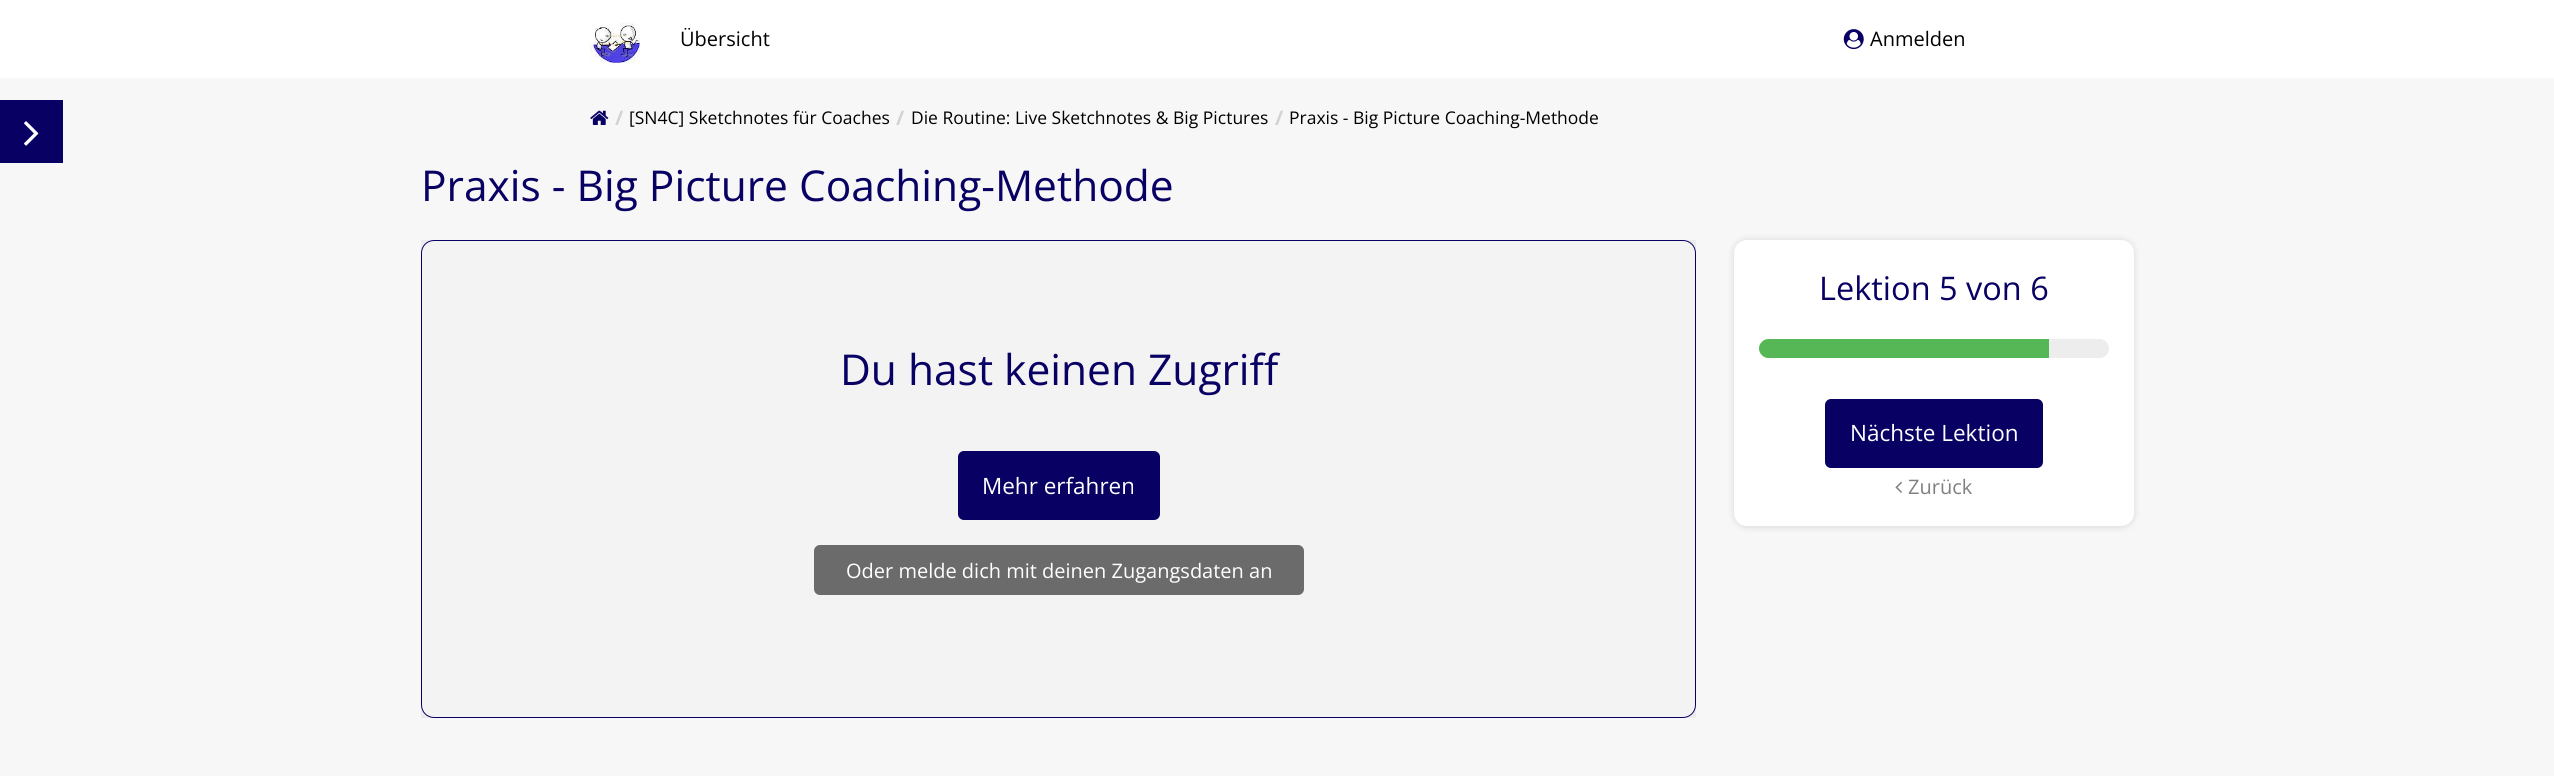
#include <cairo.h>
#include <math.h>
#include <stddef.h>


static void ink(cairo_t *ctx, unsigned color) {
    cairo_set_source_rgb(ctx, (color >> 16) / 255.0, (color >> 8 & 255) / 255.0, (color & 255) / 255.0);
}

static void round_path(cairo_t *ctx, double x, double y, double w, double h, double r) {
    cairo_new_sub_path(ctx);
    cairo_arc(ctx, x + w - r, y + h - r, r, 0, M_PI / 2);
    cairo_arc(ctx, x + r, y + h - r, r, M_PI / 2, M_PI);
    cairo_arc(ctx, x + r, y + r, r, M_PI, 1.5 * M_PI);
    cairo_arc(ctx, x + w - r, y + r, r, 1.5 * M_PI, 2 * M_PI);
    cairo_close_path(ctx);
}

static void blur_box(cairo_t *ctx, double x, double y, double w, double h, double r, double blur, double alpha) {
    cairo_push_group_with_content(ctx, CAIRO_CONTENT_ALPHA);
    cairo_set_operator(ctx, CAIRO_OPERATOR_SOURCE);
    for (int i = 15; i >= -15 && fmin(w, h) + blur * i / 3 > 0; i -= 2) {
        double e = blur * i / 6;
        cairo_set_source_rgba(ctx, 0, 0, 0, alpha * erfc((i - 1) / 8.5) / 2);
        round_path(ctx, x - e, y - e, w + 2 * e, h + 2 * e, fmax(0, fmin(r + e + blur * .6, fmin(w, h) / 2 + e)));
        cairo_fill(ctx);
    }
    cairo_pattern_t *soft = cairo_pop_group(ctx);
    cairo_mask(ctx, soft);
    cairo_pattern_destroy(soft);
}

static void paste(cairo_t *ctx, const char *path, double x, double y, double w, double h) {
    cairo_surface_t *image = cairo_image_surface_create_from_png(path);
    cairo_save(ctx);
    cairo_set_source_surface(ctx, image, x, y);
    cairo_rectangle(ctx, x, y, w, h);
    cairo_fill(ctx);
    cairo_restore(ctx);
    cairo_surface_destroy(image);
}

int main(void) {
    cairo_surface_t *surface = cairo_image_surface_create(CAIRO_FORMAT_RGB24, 2554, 776);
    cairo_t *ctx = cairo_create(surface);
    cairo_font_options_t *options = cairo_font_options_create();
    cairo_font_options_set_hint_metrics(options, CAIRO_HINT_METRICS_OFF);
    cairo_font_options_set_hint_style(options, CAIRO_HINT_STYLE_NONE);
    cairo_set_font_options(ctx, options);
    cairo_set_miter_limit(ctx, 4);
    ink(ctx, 0xF7F7F7);
    cairo_paint(ctx);
    ink(ctx, 0xFFFFFF);
    cairo_rectangle(ctx, 0, 0, 2554, 78);
    cairo_fill(ctx);
    paste(ctx, "media/1.png", 590, 22, 51, 43);
    cairo_select_font_face(ctx, "Open Sans", CAIRO_FONT_SLANT_NORMAL, CAIRO_FONT_WEIGHT_NORMAL);
    cairo_set_font_size(ctx, 20);
    ink(ctx, 0x000000);
    cairo_move_to(ctx, 680, 46);
    cairo_show_text(ctx, "Übersicht");
    paste(ctx, "media/2.png", 1843, 29, 21, 21);
    cairo_move_to(ctx, 1870, 46);
    cairo_show_text(ctx, "Anmelden");
    ink(ctx, 0x080063);
    cairo_rectangle(ctx, 0, 100, 63, 63);
    cairo_fill(ctx);
    paste(ctx, "media/3.png", 24, 121, 15, 25);
    paste(ctx, "media/4.png", 590, 110, 19, 15);
    cairo_select_font_face(ctx, "Open Sans", CAIRO_FONT_SLANT_NORMAL, CAIRO_FONT_WEIGHT_BOLD);
    ink(ctx, 0xD3D3D3);
    cairo_move_to(ctx, 615, 125);
    cairo_show_text(ctx, "/");
    cairo_select_font_face(ctx, "Open Sans", CAIRO_FONT_SLANT_NORMAL, CAIRO_FONT_WEIGHT_NORMAL);
    cairo_set_font_size(ctx, 17.5);
    ink(ctx, 0x000000);
    cairo_move_to(ctx, 629, 124);
    cairo_show_text(ctx, "[SN4C] Sketchnotes für Coaches");
    cairo_select_font_face(ctx, "Open Sans", CAIRO_FONT_SLANT_NORMAL, CAIRO_FONT_WEIGHT_BOLD);
    cairo_set_font_size(ctx, 20);
    ink(ctx, 0xD3D3D3);
    cairo_move_to(ctx, 896, 125);
    cairo_show_text(ctx, "/");
    cairo_select_font_face(ctx, "Open Sans", CAIRO_FONT_SLANT_NORMAL, CAIRO_FONT_WEIGHT_NORMAL);
    cairo_set_font_size(ctx, 17.5);
    ink(ctx, 0x000000);
    cairo_move_to(ctx, 911, 124);
    cairo_show_text(ctx, "Die Routine: Live Sketchnotes & Big Pictures");
    cairo_select_font_face(ctx, "Open Sans", CAIRO_FONT_SLANT_NORMAL, CAIRO_FONT_WEIGHT_BOLD);
    cairo_set_font_size(ctx, 20);
    ink(ctx, 0xD3D3D3);
    cairo_move_to(ctx, 1275, 125);
    cairo_show_text(ctx, "/");
    cairo_select_font_face(ctx, "Open Sans", CAIRO_FONT_SLANT_NORMAL, CAIRO_FONT_WEIGHT_NORMAL);
    cairo_set_font_size(ctx, 17.5);
    ink(ctx, 0x000000);
    cairo_move_to(ctx, 1289, 124);
    cairo_show_text(ctx, "Praxis - Big Picture Coaching-Methode");
    cairo_set_font_size(ctx, 42.5);
    ink(ctx, 0x080063);
    cairo_move_to(ctx, 421, 201);
    cairo_show_text(ctx, "Praxis - Big Picture Coaching-Methode");
    ink(ctx, 0xFFFFFF);
    round_path(ctx, 421, 240, 1275, 478, 13);
    cairo_fill(ctx);
    cairo_set_source_rgba(ctx, 0, 0, 0, 0.05);
    cairo_rectangle(ctx, 421, 240, 1275, 478);
    cairo_fill(ctx);
    round_path(ctx, 421.5, 240.5, 1274, 477, 12.5);
    ink(ctx, 0x080063);
    cairo_set_line_width(ctx, 1);
    cairo_stroke(ctx);
    cairo_move_to(ctx, 840, 385);
    cairo_show_text(ctx, "Du hast keinen Zugriff");
    round_path(ctx, 958, 451, 202, 69, 6);
    cairo_fill(ctx);
    cairo_set_font_size(ctx, 22.5);
    ink(ctx, 0xFFFFFF);
    cairo_move_to(ctx, 982, 494);
    cairo_show_text(ctx, "Mehr erfahren");
    ink(ctx, 0x6B6B6B);
    round_path(ctx, 814, 545, 490, 50, 6);
    cairo_fill(ctx);
    cairo_set_font_size(ctx, 20);
    ink(ctx, 0xFFFFFF);
    cairo_move_to(ctx, 846, 578);
    cairo_show_text(ctx, "Oder melde dich mit deinen Zugangsdaten an");
    ink(ctx, 0x000000);
    blur_box(ctx, 1733, 239, 402, 289, 14, 3, 0.1);
    ink(ctx, 0xFFFFFF);
    round_path(ctx, 1734, 240, 400, 286, 13);
    cairo_fill(ctx);
    cairo_set_font_size(ctx, 32.5);
    ink(ctx, 0x080063);
    cairo_move_to(ctx, 1819, 300);
    cairo_show_text(ctx, "Lektion 5 von 6");
    ink(ctx, 0xEDEDED);
    round_path(ctx, 1759, 339, 350, 19, 9.5);
    cairo_fill(ctx);
    ink(ctx, 0x55B755);
    cairo_new_path(ctx);
    cairo_move_to(ctx, 1768.5, 339);
    cairo_line_to(ctx, 2049, 339);
    cairo_line_to(ctx, 2049, 358);
    cairo_line_to(ctx, 1768.5, 358);
    cairo_curve_to(ctx, 1763.5, 358, 1759, 353.5, 1759, 348.5);
    cairo_curve_to(ctx, 1759, 343.5, 1763.5, 339, 1768.5, 339);
    cairo_close_path(ctx);
    cairo_fill(ctx);
    ink(ctx, 0x080063);
    round_path(ctx, 1825, 399, 218, 69, 6);
    cairo_fill(ctx);
    cairo_set_font_size(ctx, 22.5);
    ink(ctx, 0xFFFFFF);
    cairo_move_to(ctx, 1850, 441);
    cairo_show_text(ctx, "Nächste Lektion");
    paste(ctx, "media/5.png", 1895, 481, 7, 12);
    cairo_set_font_size(ctx, 20);
    ink(ctx, 0x808080);
    cairo_move_to(ctx, 1908, 494);
    cairo_show_text(ctx, "Zurück");
    cairo_surface_write_to_png(surface, "image.png");
    cairo_font_options_destroy(options);
    cairo_destroy(ctx);
    cairo_surface_destroy(surface);
    return 0;
}
